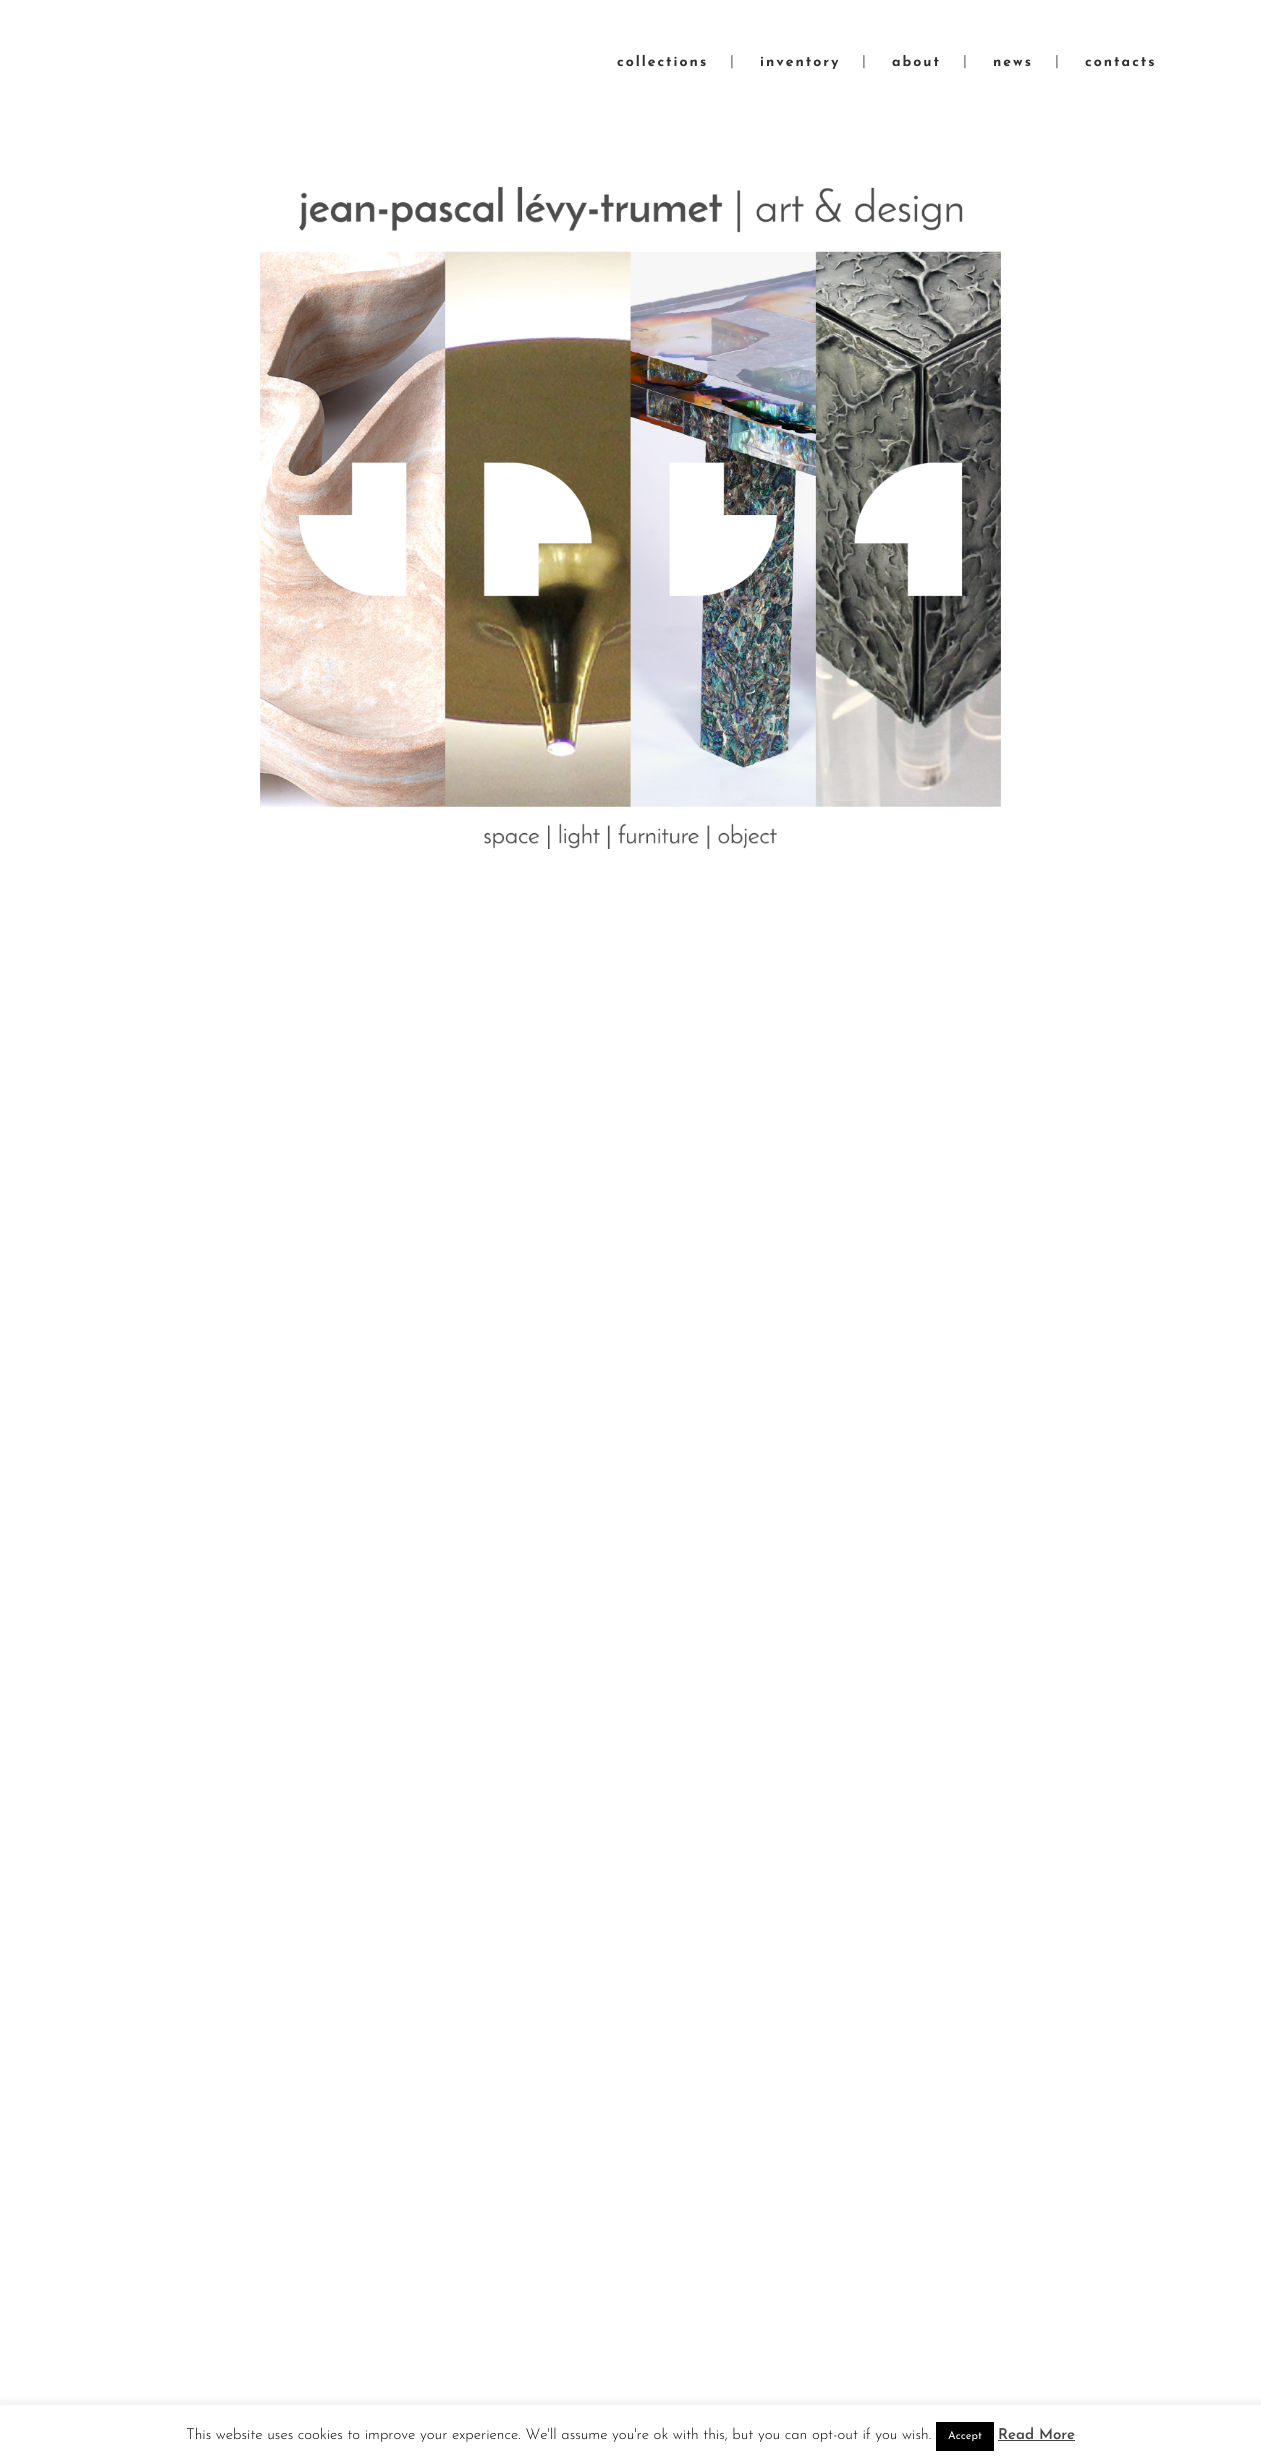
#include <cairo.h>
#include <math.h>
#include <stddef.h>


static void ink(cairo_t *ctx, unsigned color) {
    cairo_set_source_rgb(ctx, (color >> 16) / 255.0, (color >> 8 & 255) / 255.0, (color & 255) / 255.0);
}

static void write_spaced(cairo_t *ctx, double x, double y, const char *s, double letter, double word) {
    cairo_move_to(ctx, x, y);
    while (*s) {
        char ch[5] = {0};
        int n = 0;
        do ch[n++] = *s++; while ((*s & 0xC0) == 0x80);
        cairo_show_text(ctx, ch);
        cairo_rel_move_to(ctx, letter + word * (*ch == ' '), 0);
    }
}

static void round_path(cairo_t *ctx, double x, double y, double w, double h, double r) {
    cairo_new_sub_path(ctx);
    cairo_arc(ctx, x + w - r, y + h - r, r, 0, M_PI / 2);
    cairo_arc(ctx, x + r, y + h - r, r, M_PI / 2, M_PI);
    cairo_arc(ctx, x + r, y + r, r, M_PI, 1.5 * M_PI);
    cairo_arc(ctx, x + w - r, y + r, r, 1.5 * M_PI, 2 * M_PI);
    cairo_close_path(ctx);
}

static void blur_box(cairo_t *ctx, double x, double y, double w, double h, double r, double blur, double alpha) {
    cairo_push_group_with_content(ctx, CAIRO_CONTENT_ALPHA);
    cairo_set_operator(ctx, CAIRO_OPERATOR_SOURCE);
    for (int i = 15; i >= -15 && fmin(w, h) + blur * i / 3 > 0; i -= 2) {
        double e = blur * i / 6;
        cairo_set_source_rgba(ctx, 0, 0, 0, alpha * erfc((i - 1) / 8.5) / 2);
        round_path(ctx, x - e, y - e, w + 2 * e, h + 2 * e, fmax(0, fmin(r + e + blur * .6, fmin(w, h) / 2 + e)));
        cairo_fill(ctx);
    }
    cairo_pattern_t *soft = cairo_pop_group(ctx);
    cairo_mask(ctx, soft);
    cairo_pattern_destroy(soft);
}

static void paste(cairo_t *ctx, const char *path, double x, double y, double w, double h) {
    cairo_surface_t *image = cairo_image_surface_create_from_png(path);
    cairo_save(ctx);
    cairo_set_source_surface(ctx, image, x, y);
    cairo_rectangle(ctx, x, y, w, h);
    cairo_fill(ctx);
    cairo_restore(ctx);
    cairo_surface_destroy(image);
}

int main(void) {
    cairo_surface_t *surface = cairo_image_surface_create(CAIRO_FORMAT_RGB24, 1261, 2463);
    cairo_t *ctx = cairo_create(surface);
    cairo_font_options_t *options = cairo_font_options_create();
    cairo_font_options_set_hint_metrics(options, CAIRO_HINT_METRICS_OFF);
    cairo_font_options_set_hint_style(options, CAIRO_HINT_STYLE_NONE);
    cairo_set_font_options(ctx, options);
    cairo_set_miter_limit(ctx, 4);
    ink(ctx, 0xFFFFFF);
    cairo_paint(ctx);
    cairo_select_font_face(ctx, "Josefin Sans", CAIRO_FONT_SLANT_NORMAL, CAIRO_FONT_WEIGHT_BOLD);
    cairo_set_font_size(ctx, 14);
    ink(ctx, 0x303030);
    write_spaced(ctx, 617, 66, "collections", 2, 0);
    cairo_select_font_face(ctx, "Josefin Sans", CAIRO_FONT_SLANT_NORMAL, CAIRO_FONT_WEIGHT_NORMAL);
    ink(ctx, 0x696969);
    cairo_move_to(ctx, 730, 65);
    cairo_show_text(ctx, "|");
    cairo_select_font_face(ctx, "Josefin Sans", CAIRO_FONT_SLANT_NORMAL, CAIRO_FONT_WEIGHT_BOLD);
    ink(ctx, 0x303030);
    write_spaced(ctx, 760, 66, "inventory", 2, 0);
    cairo_select_font_face(ctx, "Josefin Sans", CAIRO_FONT_SLANT_NORMAL, CAIRO_FONT_WEIGHT_NORMAL);
    ink(ctx, 0x696969);
    cairo_move_to(ctx, 862, 65);
    cairo_show_text(ctx, "|");
    cairo_select_font_face(ctx, "Josefin Sans", CAIRO_FONT_SLANT_NORMAL, CAIRO_FONT_WEIGHT_BOLD);
    ink(ctx, 0x303030);
    write_spaced(ctx, 892, 66, "about", 2, 0);
    cairo_select_font_face(ctx, "Josefin Sans", CAIRO_FONT_SLANT_NORMAL, CAIRO_FONT_WEIGHT_NORMAL);
    ink(ctx, 0x696969);
    cairo_move_to(ctx, 963, 65);
    cairo_show_text(ctx, "|");
    cairo_select_font_face(ctx, "Josefin Sans", CAIRO_FONT_SLANT_NORMAL, CAIRO_FONT_WEIGHT_BOLD);
    ink(ctx, 0x303030);
    write_spaced(ctx, 993, 66, "news", 2, 0);
    cairo_select_font_face(ctx, "Josefin Sans", CAIRO_FONT_SLANT_NORMAL, CAIRO_FONT_WEIGHT_NORMAL);
    ink(ctx, 0x696969);
    cairo_move_to(ctx, 1055, 65);
    cairo_show_text(ctx, "|");
    cairo_select_font_face(ctx, "Josefin Sans", CAIRO_FONT_SLANT_NORMAL, CAIRO_FONT_WEIGHT_BOLD);
    ink(ctx, 0x303030);
    write_spaced(ctx, 1085, 66, "contacts", 2, 0);
    paste(ctx, "media/1.png", 260, 187, 741, 662);
    cairo_save(ctx);
    cairo_rectangle(ctx, 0, 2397, 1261, 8);
    cairo_clip(ctx);
    ink(ctx, 0xACABAB);
    blur_box(ctx, 0, 2404, 1261, 58, 0, 5, 0.3);
    cairo_restore(ctx);
    cairo_select_font_face(ctx, "Josefin Sans Light", CAIRO_FONT_SLANT_NORMAL, CAIRO_FONT_WEIGHT_NORMAL);
    cairo_set_font_size(ctx, 15);
    ink(ctx, 0x000000);
    cairo_move_to(ctx, 186, 2439);
    cairo_show_text(ctx, "This website uses cookies to improve your experience. We'll assume you're ok with this, but you can opt-out if you wish.");
    cairo_rectangle(ctx, 936, 2422, 58, 29);
    cairo_fill(ctx);
    cairo_select_font_face(ctx, "Josefin Sans", CAIRO_FONT_SLANT_NORMAL, CAIRO_FONT_WEIGHT_NORMAL);
    cairo_set_font_size(ctx, 11);
    ink(ctx, 0xFFFFFF);
    cairo_move_to(ctx, 948, 2439);
    cairo_show_text(ctx, "Accept");
    cairo_select_font_face(ctx, "Josefin Sans SemiBold", CAIRO_FONT_SLANT_NORMAL, CAIRO_FONT_WEIGHT_NORMAL);
    cairo_set_font_size(ctx, 15);
    ink(ctx, 0x444444);
    cairo_move_to(ctx, 998, 2439);
    cairo_show_text(ctx, "Read More");
    cairo_rectangle(ctx, 998, 2440, 77, 1);
    cairo_fill(ctx);
    cairo_surface_write_to_png(surface, "image.png");
    cairo_font_options_destroy(options);
    cairo_destroy(ctx);
    cairo_surface_destroy(surface);
    return 0;
}
